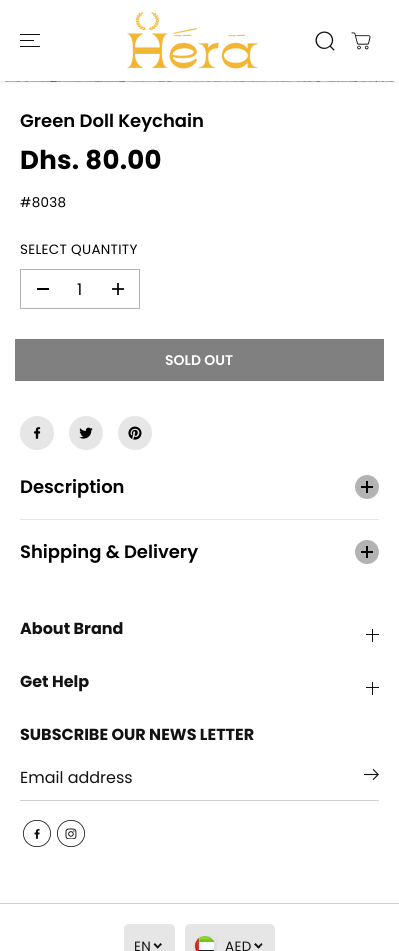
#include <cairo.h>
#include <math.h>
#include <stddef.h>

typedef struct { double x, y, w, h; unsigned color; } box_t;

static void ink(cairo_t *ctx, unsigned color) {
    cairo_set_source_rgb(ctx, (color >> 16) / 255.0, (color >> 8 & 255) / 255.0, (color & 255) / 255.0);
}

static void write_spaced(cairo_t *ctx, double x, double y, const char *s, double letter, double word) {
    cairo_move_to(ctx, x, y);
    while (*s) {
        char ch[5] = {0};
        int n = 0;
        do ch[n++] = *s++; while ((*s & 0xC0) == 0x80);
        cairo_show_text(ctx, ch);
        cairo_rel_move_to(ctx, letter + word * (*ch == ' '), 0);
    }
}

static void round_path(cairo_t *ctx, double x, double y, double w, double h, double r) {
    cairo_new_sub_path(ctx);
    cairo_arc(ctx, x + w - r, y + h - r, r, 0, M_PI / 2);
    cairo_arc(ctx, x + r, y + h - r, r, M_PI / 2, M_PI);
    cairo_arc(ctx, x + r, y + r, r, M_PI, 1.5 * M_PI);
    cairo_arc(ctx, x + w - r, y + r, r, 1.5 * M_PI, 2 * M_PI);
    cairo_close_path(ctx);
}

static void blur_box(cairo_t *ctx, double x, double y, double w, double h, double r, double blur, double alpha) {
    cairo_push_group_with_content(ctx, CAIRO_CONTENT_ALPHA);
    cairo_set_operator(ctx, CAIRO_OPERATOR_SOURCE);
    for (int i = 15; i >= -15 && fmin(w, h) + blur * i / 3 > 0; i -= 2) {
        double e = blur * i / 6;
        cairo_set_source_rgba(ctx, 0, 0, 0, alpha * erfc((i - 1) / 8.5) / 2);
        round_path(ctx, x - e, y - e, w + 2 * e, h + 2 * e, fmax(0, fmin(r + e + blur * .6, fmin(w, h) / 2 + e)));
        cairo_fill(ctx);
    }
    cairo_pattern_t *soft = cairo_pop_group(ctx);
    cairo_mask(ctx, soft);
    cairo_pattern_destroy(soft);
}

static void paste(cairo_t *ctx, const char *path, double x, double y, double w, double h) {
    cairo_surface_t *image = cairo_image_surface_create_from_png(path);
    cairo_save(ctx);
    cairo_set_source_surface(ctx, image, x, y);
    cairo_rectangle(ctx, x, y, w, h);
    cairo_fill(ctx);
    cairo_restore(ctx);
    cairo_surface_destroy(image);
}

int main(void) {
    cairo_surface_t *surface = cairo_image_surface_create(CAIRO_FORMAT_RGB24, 399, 951);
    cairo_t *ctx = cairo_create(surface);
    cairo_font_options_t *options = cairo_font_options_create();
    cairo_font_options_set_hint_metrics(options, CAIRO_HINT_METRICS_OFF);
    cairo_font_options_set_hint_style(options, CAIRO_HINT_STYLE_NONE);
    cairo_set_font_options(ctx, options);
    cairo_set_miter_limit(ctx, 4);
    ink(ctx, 0xFFFFFF);
    cairo_paint(ctx);
    paste(ctx, "media/4.png", 5, 81, 389, 1);
    cairo_save(ctx);
    cairo_rectangle(ctx, 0, 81, 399, 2);
    cairo_clip(ctx);
    ink(ctx, 0x000000);
    blur_box(ctx, 0, 2, 399, 81, 0, 1, 0.05);
    cairo_restore(ctx);
    {
        static const box_t items[] = {
            {20, 40, 14, 1, 0x131212},
            {20, 34, 20, 1, 0x131212},
            {20, 46, 20, 1, 0x131212},
        };
        for (size_t i = 0; i < sizeof items / sizeof *items; i++) {
            ink(ctx, items[i].color);
            cairo_rectangle(ctx, items[i].x, items[i].y, items[i].w, items[i].h);
            cairo_fill(ctx);
        }
    }
    paste(ctx, "media/1.png", 127, 12, 131, 57);
    paste(ctx, "media/2.png", 315, 31, 20, 20);
    paste(ctx, "media/3.png", 351, 32, 20, 18);
    cairo_select_font_face(ctx, "Poppins SemiBold", CAIRO_FONT_SLANT_NORMAL, CAIRO_FONT_WEIGHT_NORMAL);
    cairo_set_font_size(ctx, 18);
    ink(ctx, 0x000000);
    cairo_move_to(ctx, 20, 127);
    cairo_show_text(ctx, "Green Doll Keychain");
    cairo_select_font_face(ctx, "Poppins", CAIRO_FONT_SLANT_NORMAL, CAIRO_FONT_WEIGHT_BOLD);
    cairo_set_font_size(ctx, 26);
    write_spaced(ctx, 20, 169, "Dhs. 80.00", 0.3, 0);
    cairo_select_font_face(ctx, "Poppins", CAIRO_FONT_SLANT_NORMAL, CAIRO_FONT_WEIGHT_NORMAL);
    cairo_set_font_size(ctx, 13.5);
    write_spaced(ctx, 20, 207, "#8038", 0.3, 0);
    write_spaced(ctx, 20, 254, "SELECT QUANTITY", 0.3, 0);
    cairo_rectangle(ctx, 20.5, 269.5, 119, 39);
    ink(ctx, 0xB3B3B3);
    cairo_set_line_width(ctx, 1);
    cairo_stroke(ctx);
    ink(ctx, 0x000000);
    cairo_rectangle(ctx, 37, 288, 12, 2);
    cairo_fill(ctx);
    cairo_set_font_size(ctx, 16);
    cairo_move_to(ctx, 77, 295);
    cairo_show_text(ctx, "1");
    paste(ctx, "media/5.png", 112, 283, 12, 12);
    ink(ctx, 0x808080);
    cairo_rectangle(ctx, 15, 339, 369, 42);
    cairo_fill(ctx);
    cairo_select_font_face(ctx, "Poppins SemiBold", CAIRO_FONT_SLANT_NORMAL, CAIRO_FONT_WEIGHT_NORMAL);
    cairo_set_font_size(ctx, 14);
    ink(ctx, 0xFFFFFF);
    cairo_move_to(ctx, 165, 365);
    cairo_show_text(ctx, "SOLD OUT");
    ink(ctx, 0xE6E6E6);
    cairo_new_path(ctx);
    cairo_arc(ctx, 37, 433, 17, 0, 2 * M_PI);
    cairo_fill(ctx);
    paste(ctx, "media/6.png", 34, 427, 7, 12);
    cairo_arc(ctx, 86, 433, 17, 0, 2 * M_PI);
    cairo_fill(ctx);
    paste(ctx, "media/7.png", 79, 427, 14, 12);
    cairo_arc(ctx, 135, 433, 17, 0, 2 * M_PI);
    cairo_fill(ctx);
    paste(ctx, "media/8.png", 128, 426, 14, 14);
    cairo_rectangle(ctx, 20, 519, 359, 1);
    cairo_fill(ctx);
    cairo_set_font_size(ctx, 18);
    ink(ctx, 0x000000);
    cairo_move_to(ctx, 20, 493);
    cairo_show_text(ctx, "Description");
    ink(ctx, 0xB3B3B3);
    cairo_new_path(ctx);
    cairo_arc(ctx, 367, 487, 12, 0, 2 * M_PI);
    cairo_fill(ctx);
    ink(ctx, 0x000000);
    cairo_rectangle(ctx, 366, 481, 2, 12);
    cairo_fill(ctx);
    cairo_rectangle(ctx, 361, 486, 12, 2);
    cairo_fill(ctx);
    cairo_move_to(ctx, 20, 558);
    cairo_show_text(ctx, "Shipping & Delivery");
    ink(ctx, 0xB3B3B3);
    cairo_new_path(ctx);
    cairo_arc(ctx, 367, 552, 12, 0, 2 * M_PI);
    cairo_fill(ctx);
    ink(ctx, 0x000000);
    cairo_rectangle(ctx, 366, 546, 2, 12);
    cairo_fill(ctx);
    cairo_rectangle(ctx, 361, 551, 12, 2);
    cairo_fill(ctx);
    cairo_select_font_face(ctx, "Poppins", CAIRO_FONT_SLANT_NORMAL, CAIRO_FONT_WEIGHT_BOLD);
    cairo_set_font_size(ctx, 16);
    ink(ctx, 0x131212);
    cairo_move_to(ctx, 20, 634);
    cairo_show_text(ctx, "About Brand");
    cairo_rectangle(ctx, 372, 629, 1, 13);
    cairo_fill(ctx);
    cairo_rectangle(ctx, 366, 634, 13, 1);
    cairo_fill(ctx);
    cairo_move_to(ctx, 20, 687);
    cairo_show_text(ctx, "Get Help");
    cairo_rectangle(ctx, 372, 682, 1, 13);
    cairo_fill(ctx);
    cairo_rectangle(ctx, 366, 687, 13, 1);
    cairo_fill(ctx);
    cairo_move_to(ctx, 20, 740);
    cairo_show_text(ctx, "SUBSCRIBE OUR NEWS LETTER");
    ink(ctx, 0xD0D0D0);
    cairo_rectangle(ctx, 20, 800, 359, 1);
    cairo_fill(ctx);
    cairo_select_font_face(ctx, "Poppins", CAIRO_FONT_SLANT_NORMAL, CAIRO_FONT_WEIGHT_NORMAL);
    ink(ctx, 0x131212);
    cairo_move_to(ctx, 20, 783);
    cairo_show_text(ctx, "Email address");
    paste(ctx, "media/9.png", 364, 768, 15, 12);
    paste(ctx, "media/10.png", 34, 829, 6, 10);
    round_path(ctx, 23.4, 820.4, 27.2, 26.2, 13.1);
    cairo_set_line_width(ctx, 0.8);
    cairo_stroke(ctx);
    paste(ctx, "media/11.png", 65, 828, 12, 11);
    round_path(ctx, 57.4, 820.4, 27.2, 26.2, 13.1);
    cairo_stroke(ctx);
    ink(ctx, 0xD0D0D0);
    cairo_rectangle(ctx, 0, 903, 399, 1);
    cairo_fill(ctx);
    ink(ctx, 0xE6E6E6);
    round_path(ctx, 124, 924, 51, 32, 5);
    cairo_fill(ctx);
    cairo_set_font_size(ctx, 13.5);
    ink(ctx, 0x131212);
    write_spaced(ctx, 134, 951, "EN", 0.3, 0);
    cairo_new_path(ctx);
    cairo_move_to(ctx, 160.5, 943);
    cairo_line_to(ctx, 162, 944.5);
    cairo_line_to(ctx, 157.5, 948.5);
    cairo_line_to(ctx, 156.5, 947.5);
    cairo_close_path(ctx);
    cairo_fill(ctx);
    cairo_new_path(ctx);
    cairo_move_to(ctx, 155, 943);
    cairo_line_to(ctx, 159, 947.5);
    cairo_line_to(ctx, 157.5, 948.5);
    cairo_line_to(ctx, 153.5, 944.5);
    cairo_close_path(ctx);
    cairo_fill(ctx);
    ink(ctx, 0xE6E6E6);
    round_path(ctx, 185, 924, 90, 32, 5);
    cairo_fill(ctx);
    paste(ctx, "media/12.png", 193, 936, 24, 15);
    ink(ctx, 0x131212);
    write_spaced(ctx, 225, 951, "AED", 0.3, 0);
    cairo_new_path(ctx);
    cairo_move_to(ctx, 261.5, 943);
    cairo_line_to(ctx, 262.5, 944.5);
    cairo_line_to(ctx, 258.5, 948.5);
    cairo_line_to(ctx, 257, 947.5);
    cairo_close_path(ctx);
    cairo_fill(ctx);
    cairo_new_path(ctx);
    cairo_move_to(ctx, 255.5, 943);
    cairo_line_to(ctx, 260, 947.5);
    cairo_line_to(ctx, 258.5, 948.5);
    cairo_line_to(ctx, 254, 944.5);
    cairo_close_path(ctx);
    cairo_fill(ctx);
    cairo_surface_write_to_png(surface, "image.png");
    cairo_font_options_destroy(options);
    cairo_destroy(ctx);
    cairo_surface_destroy(surface);
    return 0;
}
